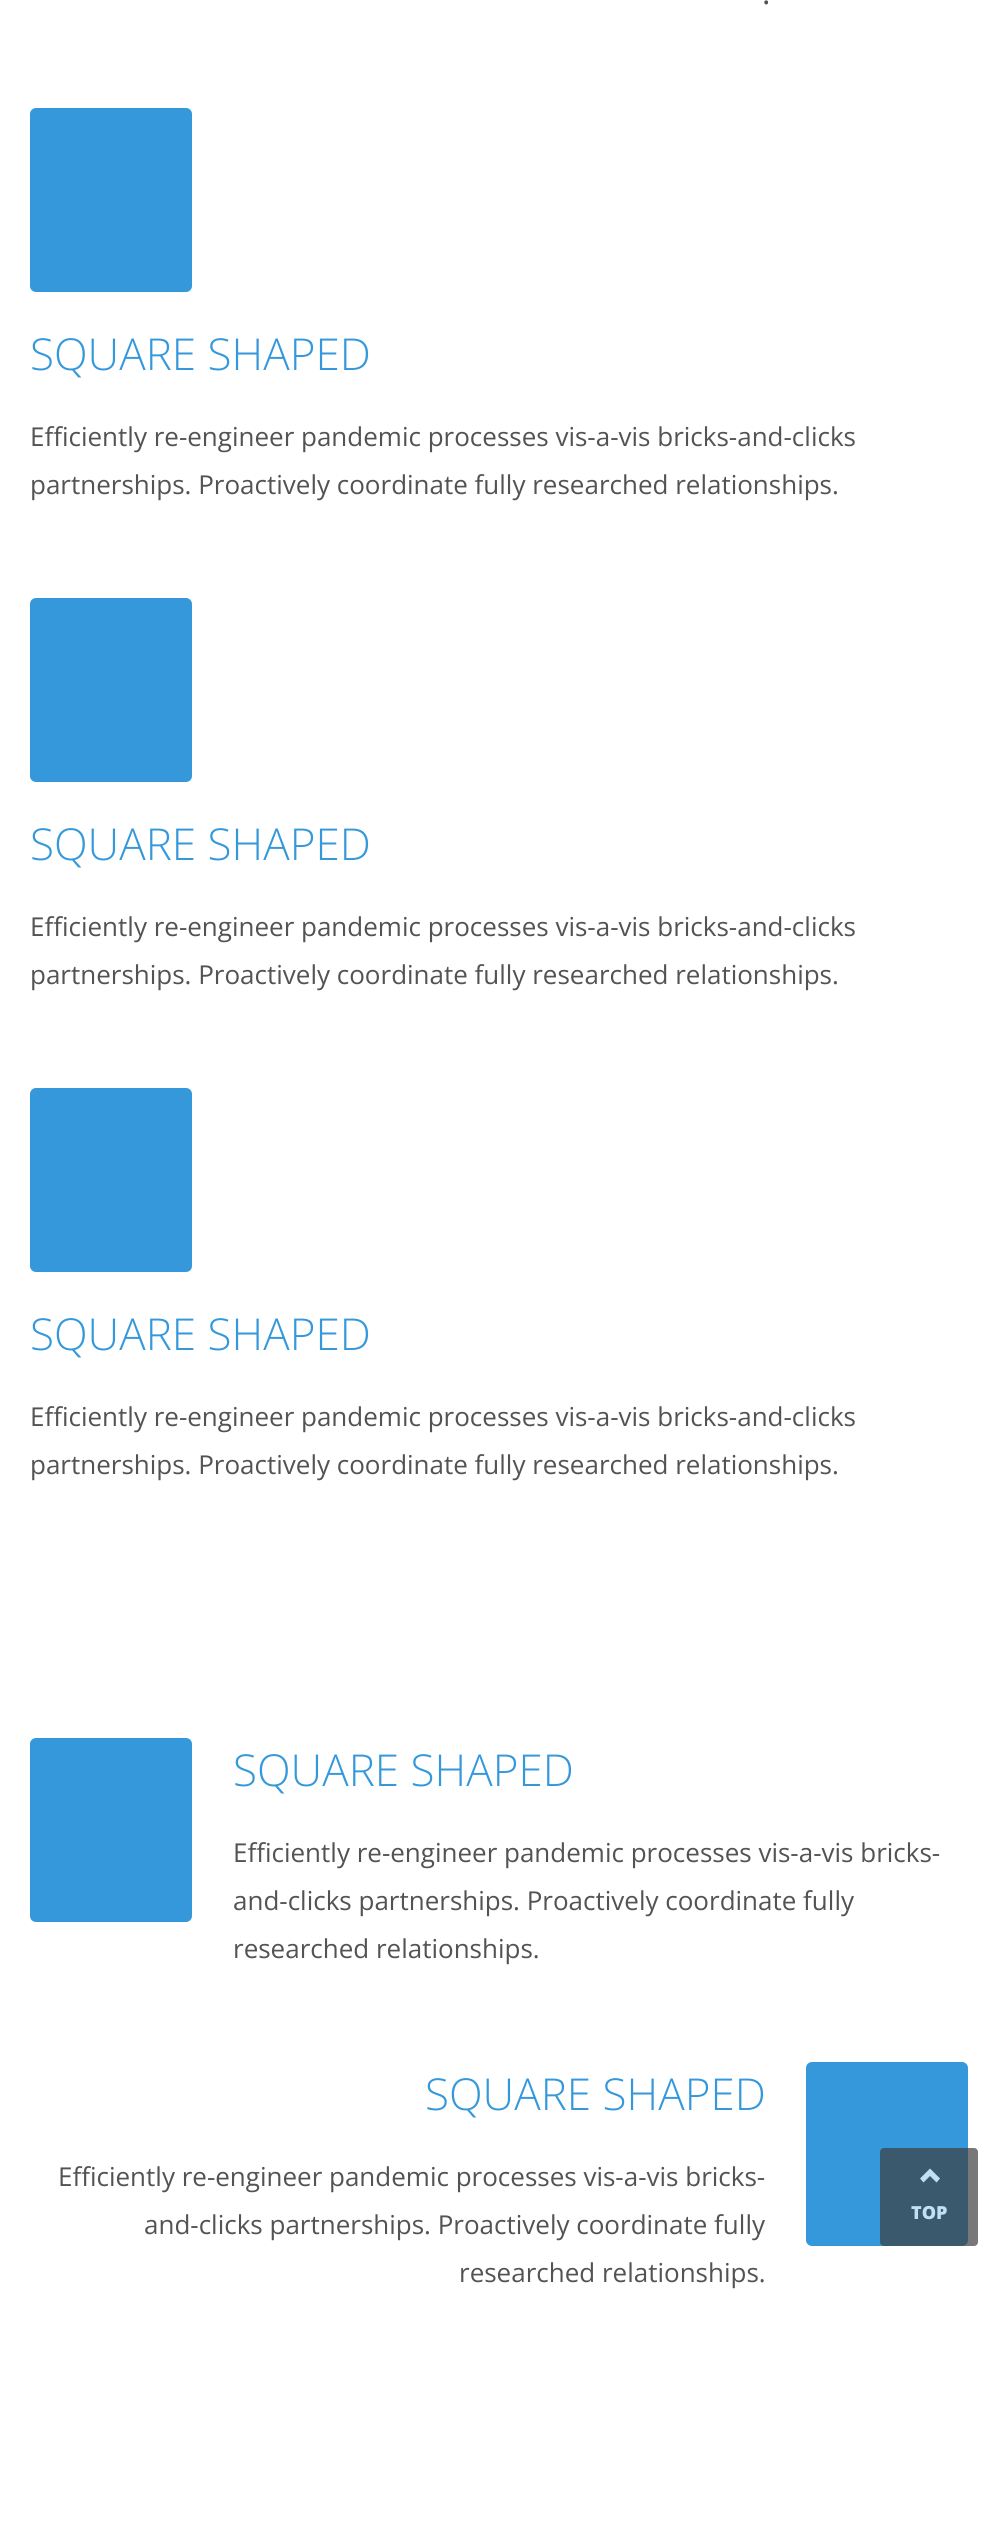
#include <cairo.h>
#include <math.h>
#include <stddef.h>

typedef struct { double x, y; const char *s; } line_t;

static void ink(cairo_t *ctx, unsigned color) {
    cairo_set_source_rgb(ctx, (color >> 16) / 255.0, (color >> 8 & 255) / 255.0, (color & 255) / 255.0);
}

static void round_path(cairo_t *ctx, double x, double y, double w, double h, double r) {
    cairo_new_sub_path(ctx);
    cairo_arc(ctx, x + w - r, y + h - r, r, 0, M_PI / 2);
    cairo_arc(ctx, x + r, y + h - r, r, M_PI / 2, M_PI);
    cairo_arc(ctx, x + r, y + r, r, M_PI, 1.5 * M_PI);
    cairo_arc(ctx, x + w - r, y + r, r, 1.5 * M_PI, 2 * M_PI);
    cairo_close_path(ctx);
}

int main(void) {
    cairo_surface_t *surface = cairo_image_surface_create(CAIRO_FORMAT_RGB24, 997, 2525);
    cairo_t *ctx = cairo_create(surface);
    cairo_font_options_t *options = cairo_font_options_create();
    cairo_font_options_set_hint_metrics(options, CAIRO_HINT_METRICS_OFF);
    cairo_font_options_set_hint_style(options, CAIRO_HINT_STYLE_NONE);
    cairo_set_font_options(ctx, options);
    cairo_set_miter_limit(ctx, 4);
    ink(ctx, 0xFFFFFF);
    cairo_paint(ctx);
    cairo_select_font_face(ctx, "Open Sans", CAIRO_FONT_SLANT_NORMAL, CAIRO_FONT_WEIGHT_NORMAL);
    cairo_set_font_size(ctx, 32);
    ink(ctx, 0x535353);
    cairo_move_to(ctx, 762, 4);
    cairo_show_text(ctx, ".");
    ink(ctx, 0x3498DB);
    round_path(ctx, 30, 108, 162, 184, 6);
    cairo_fill(ctx);
    cairo_select_font_face(ctx, "Open Sans Light", CAIRO_FONT_SLANT_NORMAL, CAIRO_FONT_WEIGHT_NORMAL);
    cairo_set_font_size(ctx, 44);
    cairo_move_to(ctx, 30, 370);
    cairo_show_text(ctx, "SQUARE SHAPED");
    cairo_select_font_face(ctx, "Open Sans", CAIRO_FONT_SLANT_NORMAL, CAIRO_FONT_WEIGHT_NORMAL);
    cairo_set_font_size(ctx, 26);
    ink(ctx, 0x535353);
    cairo_move_to(ctx, 30, 446);
    cairo_show_text(ctx, "Efficiently re-engineer pandemic processes vis-a-vis bricks-and-clicks");
    cairo_move_to(ctx, 30, 494);
    cairo_show_text(ctx, "partnerships. Proactively coordinate fully researched relationships.");
    ink(ctx, 0x3498DB);
    round_path(ctx, 30, 598, 162, 184, 6);
    cairo_fill(ctx);
    cairo_select_font_face(ctx, "Open Sans Light", CAIRO_FONT_SLANT_NORMAL, CAIRO_FONT_WEIGHT_NORMAL);
    cairo_set_font_size(ctx, 44);
    cairo_move_to(ctx, 30, 860);
    cairo_show_text(ctx, "SQUARE SHAPED");
    cairo_select_font_face(ctx, "Open Sans", CAIRO_FONT_SLANT_NORMAL, CAIRO_FONT_WEIGHT_NORMAL);
    cairo_set_font_size(ctx, 26);
    ink(ctx, 0x535353);
    cairo_move_to(ctx, 30, 936);
    cairo_show_text(ctx, "Efficiently re-engineer pandemic processes vis-a-vis bricks-and-clicks");
    cairo_move_to(ctx, 30, 984);
    cairo_show_text(ctx, "partnerships. Proactively coordinate fully researched relationships.");
    ink(ctx, 0x3498DB);
    round_path(ctx, 30, 1088, 162, 184, 6);
    cairo_fill(ctx);
    cairo_select_font_face(ctx, "Open Sans Light", CAIRO_FONT_SLANT_NORMAL, CAIRO_FONT_WEIGHT_NORMAL);
    cairo_set_font_size(ctx, 44);
    cairo_move_to(ctx, 30, 1350);
    cairo_show_text(ctx, "SQUARE SHAPED");
    cairo_select_font_face(ctx, "Open Sans", CAIRO_FONT_SLANT_NORMAL, CAIRO_FONT_WEIGHT_NORMAL);
    cairo_set_font_size(ctx, 26);
    ink(ctx, 0x535353);
    cairo_move_to(ctx, 30, 1426);
    cairo_show_text(ctx, "Efficiently re-engineer pandemic processes vis-a-vis bricks-and-clicks");
    cairo_move_to(ctx, 30, 1474);
    cairo_show_text(ctx, "partnerships. Proactively coordinate fully researched relationships.");
    ink(ctx, 0x3498DB);
    round_path(ctx, 30, 1738, 162, 184, 6);
    cairo_fill(ctx);
    cairo_select_font_face(ctx, "Open Sans Light", CAIRO_FONT_SLANT_NORMAL, CAIRO_FONT_WEIGHT_NORMAL);
    cairo_set_font_size(ctx, 44);
    cairo_move_to(ctx, 233, 1786);
    cairo_show_text(ctx, "SQUARE SHAPED");
    cairo_select_font_face(ctx, "Open Sans", CAIRO_FONT_SLANT_NORMAL, CAIRO_FONT_WEIGHT_NORMAL);
    cairo_set_font_size(ctx, 26);
    ink(ctx, 0x535353);
    {
        static const line_t items[] = {
            {233, 1862, "Efficiently re-engineer pandemic processes vis-a-vis bricks-"},
            {233, 1910, "and-clicks partnerships. Proactively coordinate fully"},
            {233, 1958, "researched relationships."},
        };
        for (size_t i = 0; i < sizeof items / sizeof *items; i++) {
            cairo_move_to(ctx, items[i].x, items[i].y);
            cairo_show_text(ctx, items[i].s);
        }
    }
    cairo_select_font_face(ctx, "Open Sans Light", CAIRO_FONT_SLANT_NORMAL, CAIRO_FONT_WEIGHT_NORMAL);
    cairo_set_font_size(ctx, 44);
    ink(ctx, 0x3498DB);
    cairo_move_to(ctx, 425, 2110);
    cairo_show_text(ctx, "SQUARE SHAPED");
    cairo_select_font_face(ctx, "Open Sans", CAIRO_FONT_SLANT_NORMAL, CAIRO_FONT_WEIGHT_NORMAL);
    cairo_set_font_size(ctx, 26);
    ink(ctx, 0x535353);
    {
        static const line_t items[] = {
            {58, 2186, "Efficiently re-engineer pandemic processes vis-a-vis bricks-"},
            {144, 2234, "and-clicks partnerships. Proactively coordinate fully"},
            {459, 2282, "researched relationships."},
        };
        for (size_t i = 0; i < sizeof items / sizeof *items; i++) {
            cairo_move_to(ctx, items[i].x, items[i].y);
            cairo_show_text(ctx, items[i].s);
        }
    }
    ink(ctx, 0x3498DB);
    round_path(ctx, 806, 2062, 162, 184, 6);
    cairo_fill(ctx);
    cairo_set_source_rgba(ctx, 0.251, 0.251, 0.251, 0.7);
    round_path(ctx, 880, 2148, 98, 98, 4);
    cairo_fill(ctx);
    ink(ctx, 0xC2E0F4);
    cairo_new_path(ctx);
    cairo_move_to(ctx, 930, 2168.5);
    cairo_line_to(ctx, 940, 2178.5);
    cairo_line_to(ctx, 936.5, 2182.5);
    cairo_line_to(ctx, 930, 2176);
    cairo_line_to(ctx, 923.5, 2182.5);
    cairo_line_to(ctx, 920, 2178.5);
    cairo_close_path(ctx);
    cairo_fill(ctx);
    cairo_select_font_face(ctx, "Open Sans ExtraBold", CAIRO_FONT_SLANT_NORMAL, CAIRO_FONT_WEIGHT_NORMAL);
    cairo_set_font_size(ctx, 18);
    cairo_move_to(ctx, 911, 2219);
    cairo_show_text(ctx, "TOP");
    cairo_surface_write_to_png(surface, "image.png");
    cairo_font_options_destroy(options);
    cairo_destroy(ctx);
    cairo_surface_destroy(surface);
    return 0;
}
